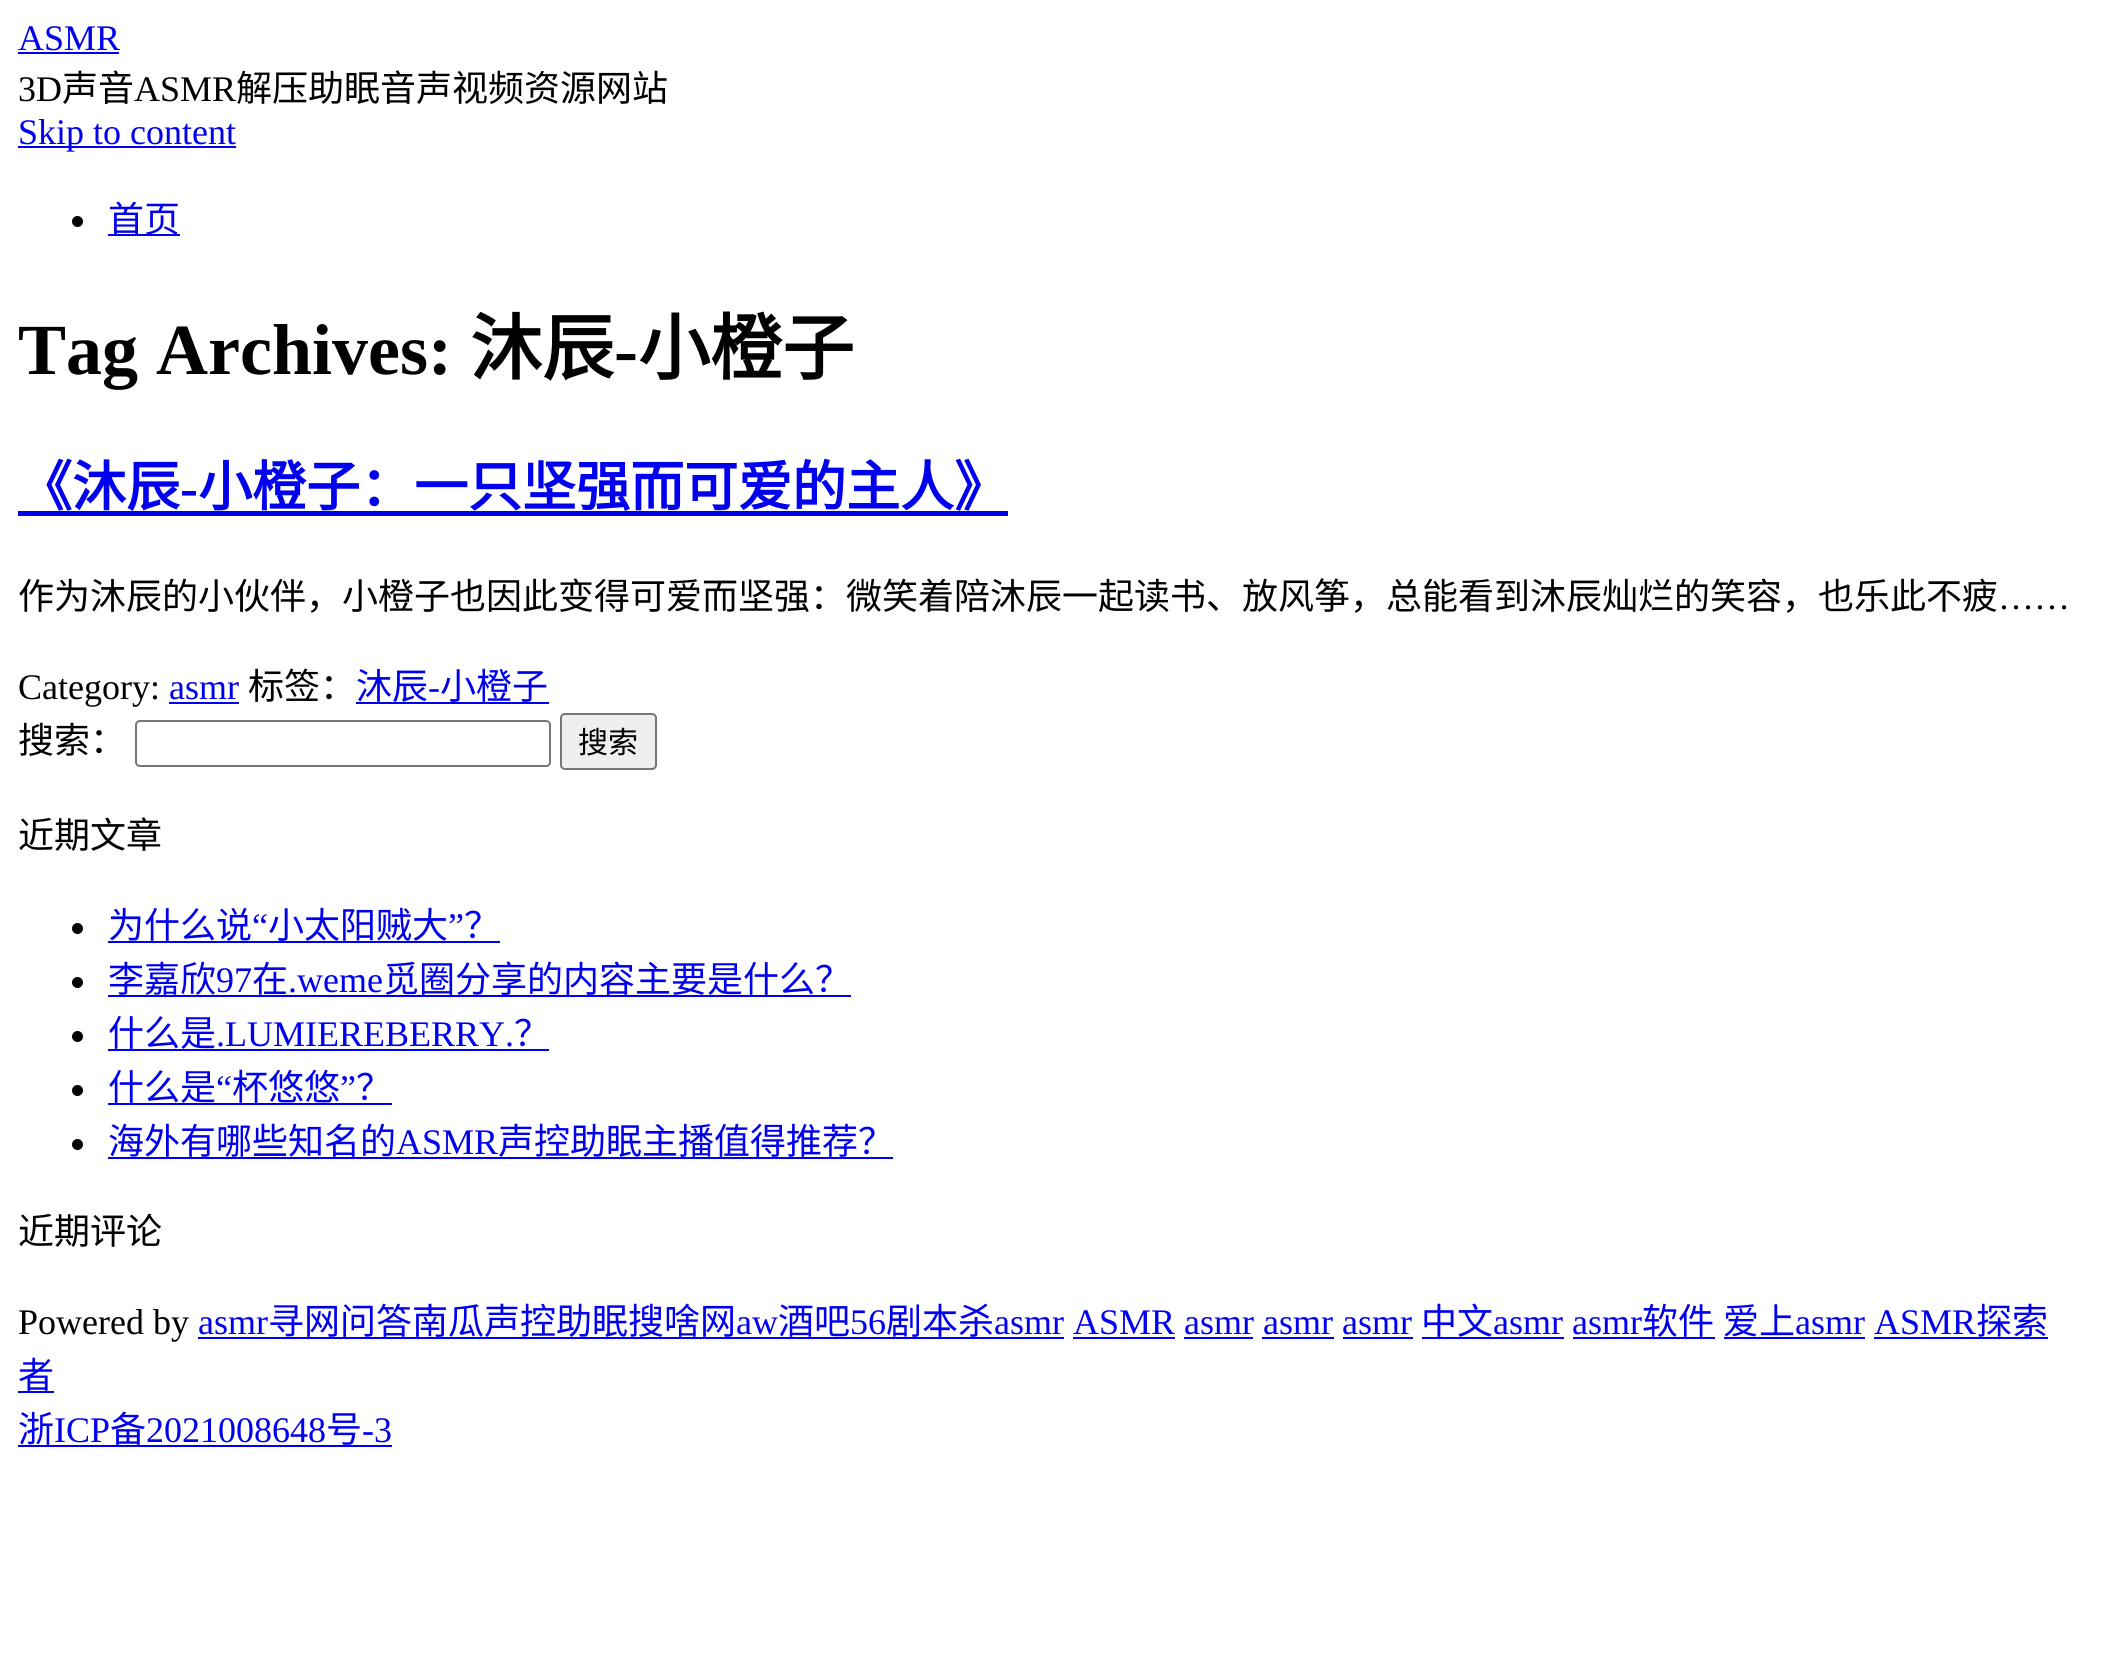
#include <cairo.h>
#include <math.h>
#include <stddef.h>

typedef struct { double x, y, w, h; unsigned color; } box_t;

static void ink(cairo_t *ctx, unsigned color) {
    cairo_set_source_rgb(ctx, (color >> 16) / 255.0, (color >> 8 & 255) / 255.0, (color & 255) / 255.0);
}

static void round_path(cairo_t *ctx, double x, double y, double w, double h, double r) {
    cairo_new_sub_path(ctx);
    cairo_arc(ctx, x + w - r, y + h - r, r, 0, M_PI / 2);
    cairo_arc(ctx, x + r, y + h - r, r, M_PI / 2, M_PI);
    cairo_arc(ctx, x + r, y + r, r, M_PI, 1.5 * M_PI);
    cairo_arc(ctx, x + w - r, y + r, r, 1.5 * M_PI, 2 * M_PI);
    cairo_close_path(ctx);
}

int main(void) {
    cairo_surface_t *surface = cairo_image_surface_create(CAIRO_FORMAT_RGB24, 2101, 1676);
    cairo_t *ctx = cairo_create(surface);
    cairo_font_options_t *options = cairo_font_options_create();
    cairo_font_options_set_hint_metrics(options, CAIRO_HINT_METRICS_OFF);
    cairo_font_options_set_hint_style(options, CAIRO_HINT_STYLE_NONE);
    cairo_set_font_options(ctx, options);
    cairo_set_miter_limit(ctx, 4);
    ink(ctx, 0xFFFFFF);
    cairo_paint(ctx);
    cairo_select_font_face(ctx, "Liberation Serif", CAIRO_FONT_SLANT_NORMAL, CAIRO_FONT_WEIGHT_NORMAL);
    cairo_set_font_size(ctx, 36);
    ink(ctx, 0x0000EE);
    cairo_move_to(ctx, 18, 50);
    cairo_show_text(ctx, "ASMR");
    cairo_rectangle(ctx, 18, 52, 101, 2);
    cairo_fill(ctx);
    ink(ctx, 0x000000);
    cairo_move_to(ctx, 18, 101);
    cairo_show_text(ctx, "3D");
    cairo_select_font_face(ctx, "Noto Sans CJK SC", CAIRO_FONT_SLANT_NORMAL, CAIRO_FONT_WEIGHT_NORMAL);
    cairo_move_to(ctx, 62, 101);
    cairo_show_text(ctx, "声音");
    cairo_select_font_face(ctx, "Liberation Serif", CAIRO_FONT_SLANT_NORMAL, CAIRO_FONT_WEIGHT_NORMAL);
    cairo_move_to(ctx, 134, 101);
    cairo_show_text(ctx, "ASMR");
    cairo_select_font_face(ctx, "Noto Sans CJK SC", CAIRO_FONT_SLANT_NORMAL, CAIRO_FONT_WEIGHT_NORMAL);
    cairo_move_to(ctx, 236, 101);
    cairo_show_text(ctx, "解压助眠音声视频资源网站");
    ink(ctx, 0x0000EE);
    cairo_rectangle(ctx, 18, 146, 218, 2);
    cairo_fill(ctx);
    cairo_select_font_face(ctx, "Liberation Serif", CAIRO_FONT_SLANT_NORMAL, CAIRO_FONT_WEIGHT_NORMAL);
    cairo_move_to(ctx, 18, 144);
    cairo_show_text(ctx, "Skip to content");
    ink(ctx, 0x000000);
    cairo_new_path(ctx);
    cairo_arc(ctx, 77.5, 221.5, 5.5, 0, 2 * M_PI);
    cairo_fill(ctx);
    ink(ctx, 0x0000EE);
    cairo_rectangle(ctx, 108, 234, 72, 2);
    cairo_fill(ctx);
    cairo_select_font_face(ctx, "Noto Sans CJK SC", CAIRO_FONT_SLANT_NORMAL, CAIRO_FONT_WEIGHT_NORMAL);
    cairo_move_to(ctx, 108, 232);
    cairo_show_text(ctx, "首页");
    cairo_select_font_face(ctx, "Liberation Serif", CAIRO_FONT_SLANT_NORMAL, CAIRO_FONT_WEIGHT_BOLD);
    cairo_set_font_size(ctx, 72);
    ink(ctx, 0x000000);
    cairo_move_to(ctx, 18, 374);
    cairo_show_text(ctx, "Tag Archives:");
    cairo_select_font_face(ctx, "Noto Sans CJK SC", CAIRO_FONT_SLANT_NORMAL, CAIRO_FONT_WEIGHT_BOLD);
    cairo_move_to(ctx, 470, 374);
    cairo_show_text(ctx, "沐辰");
    cairo_select_font_face(ctx, "Liberation Serif", CAIRO_FONT_SLANT_NORMAL, CAIRO_FONT_WEIGHT_BOLD);
    cairo_move_to(ctx, 614, 374);
    cairo_show_text(ctx, "-");
    cairo_select_font_face(ctx, "Noto Sans CJK SC", CAIRO_FONT_SLANT_NORMAL, CAIRO_FONT_WEIGHT_BOLD);
    cairo_move_to(ctx, 638, 374);
    cairo_show_text(ctx, "小橙子");
    cairo_set_font_size(ctx, 54);
    ink(ctx, 0x0000EE);
    cairo_move_to(ctx, 18, 506);
    cairo_show_text(ctx, "《沐辰");
    cairo_select_font_face(ctx, "Liberation Serif", CAIRO_FONT_SLANT_NORMAL, CAIRO_FONT_WEIGHT_BOLD);
    cairo_move_to(ctx, 180, 506);
    cairo_show_text(ctx, "-");
    cairo_rectangle(ctx, 18, 511, 990, 5);
    cairo_fill(ctx);
    cairo_select_font_face(ctx, "Noto Sans CJK SC", CAIRO_FONT_SLANT_NORMAL, CAIRO_FONT_WEIGHT_BOLD);
    cairo_move_to(ctx, 198, 506);
    cairo_show_text(ctx, "小橙子：一只坚强而可爱的主人》");
    cairo_select_font_face(ctx, "Noto Sans CJK SC", CAIRO_FONT_SLANT_NORMAL, CAIRO_FONT_WEIGHT_NORMAL);
    cairo_set_font_size(ctx, 36);
    ink(ctx, 0x000000);
    cairo_move_to(ctx, 18, 609);
    cairo_show_text(ctx, "作为沐辰的小伙伴，小橙子也因此变得可爱而坚强：微笑着陪沐辰一起读书、放风筝，总能看到沐辰灿烂的笑容，也乐此不疲");
    cairo_select_font_face(ctx, "Liberation Serif", CAIRO_FONT_SLANT_NORMAL, CAIRO_FONT_WEIGHT_NORMAL);
    cairo_move_to(ctx, 1998, 609);
    cairo_show_text(ctx, "……");
    cairo_move_to(ctx, 18, 699);
    cairo_show_text(ctx, "Category:");
    ink(ctx, 0x0000EE);
    cairo_move_to(ctx, 169, 699);
    cairo_show_text(ctx, "asmr");
    cairo_rectangle(ctx, 169, 702, 70, 2);
    cairo_fill(ctx);
    cairo_select_font_face(ctx, "Noto Sans CJK SC", CAIRO_FONT_SLANT_NORMAL, CAIRO_FONT_WEIGHT_NORMAL);
    ink(ctx, 0x000000);
    cairo_move_to(ctx, 248, 699);
    cairo_show_text(ctx, "标签：");
    ink(ctx, 0x0000EE);
    cairo_rectangle(ctx, 356, 702, 193, 2);
    cairo_fill(ctx);
    cairo_move_to(ctx, 356, 699);
    cairo_show_text(ctx, "沐辰");
    cairo_select_font_face(ctx, "Liberation Serif", CAIRO_FONT_SLANT_NORMAL, CAIRO_FONT_WEIGHT_NORMAL);
    cairo_move_to(ctx, 428, 699);
    cairo_show_text(ctx, "-");
    cairo_select_font_face(ctx, "Noto Sans CJK SC", CAIRO_FONT_SLANT_NORMAL, CAIRO_FONT_WEIGHT_NORMAL);
    cairo_move_to(ctx, 440, 699);
    cairo_show_text(ctx, "小橙子");
    ink(ctx, 0x000000);
    cairo_move_to(ctx, 18, 753);
    cairo_show_text(ctx, "搜索：");
    round_path(ctx, 136, 721, 414, 45, 4);
    ink(ctx, 0x767676);
    cairo_stroke(ctx);
    ink(ctx, 0xEFEFEF);
    round_path(ctx, 561, 714, 95, 55, 4);
    cairo_fill_preserve(ctx);
    ink(ctx, 0x767676);
    cairo_stroke(ctx);
    cairo_set_font_size(ctx, 30);
    ink(ctx, 0x000000);
    cairo_move_to(ctx, 578, 753);
    cairo_show_text(ctx, "搜索");
    cairo_set_font_size(ctx, 36);
    cairo_move_to(ctx, 18, 848);
    cairo_show_text(ctx, "近期文章");
    ink(ctx, 0x0000EE);
    cairo_move_to(ctx, 108, 938);
    cairo_show_text(ctx, "为什么说");
    cairo_select_font_face(ctx, "Liberation Serif", CAIRO_FONT_SLANT_NORMAL, CAIRO_FONT_WEIGHT_NORMAL);
    cairo_move_to(ctx, 252, 938);
    cairo_show_text(ctx, "“");
    cairo_select_font_face(ctx, "Noto Sans CJK SC", CAIRO_FONT_SLANT_NORMAL, CAIRO_FONT_WEIGHT_NORMAL);
    cairo_move_to(ctx, 268, 938);
    cairo_show_text(ctx, "小太阳贼大");
    cairo_select_font_face(ctx, "Liberation Serif", CAIRO_FONT_SLANT_NORMAL, CAIRO_FONT_WEIGHT_NORMAL);
    cairo_move_to(ctx, 448, 938);
    cairo_show_text(ctx, "”");
    cairo_select_font_face(ctx, "Noto Sans CJK SC", CAIRO_FONT_SLANT_NORMAL, CAIRO_FONT_WEIGHT_NORMAL);
    cairo_move_to(ctx, 464, 938);
    cairo_show_text(ctx, "？");
    cairo_rectangle(ctx, 108, 941, 392, 2);
    cairo_fill(ctx);
    ink(ctx, 0x000000);
    cairo_arc(ctx, 77.5, 928.5, 5.5, 0, 2 * M_PI);
    cairo_fill(ctx);
    cairo_arc(ctx, 77.5, 982.5, 5.5, 0, 2 * M_PI);
    cairo_fill(ctx);
    ink(ctx, 0x0000EE);
    cairo_move_to(ctx, 108, 992);
    cairo_show_text(ctx, "李嘉欣");
    cairo_select_font_face(ctx, "Liberation Serif", CAIRO_FONT_SLANT_NORMAL, CAIRO_FONT_WEIGHT_NORMAL);
    cairo_move_to(ctx, 216, 992);
    cairo_show_text(ctx, "97");
    cairo_select_font_face(ctx, "Noto Sans CJK SC", CAIRO_FONT_SLANT_NORMAL, CAIRO_FONT_WEIGHT_NORMAL);
    cairo_move_to(ctx, 252, 992);
    cairo_show_text(ctx, "在");
    cairo_select_font_face(ctx, "Liberation Serif", CAIRO_FONT_SLANT_NORMAL, CAIRO_FONT_WEIGHT_NORMAL);
    cairo_move_to(ctx, 288, 992);
    cairo_show_text(ctx, ".weme");
    cairo_rectangle(ctx, 108, 995, 743, 2);
    cairo_fill(ctx);
    cairo_select_font_face(ctx, "Noto Sans CJK SC", CAIRO_FONT_SLANT_NORMAL, CAIRO_FONT_WEIGHT_NORMAL);
    cairo_move_to(ctx, 383, 992);
    cairo_show_text(ctx, "觅圈分享的内容主要是什么？");
    ink(ctx, 0x000000);
    cairo_new_path(ctx);
    cairo_arc(ctx, 77.5, 1036.5, 5.5, 0, 2 * M_PI);
    cairo_fill(ctx);
    ink(ctx, 0x0000EE);
    cairo_move_to(ctx, 108, 1046);
    cairo_show_text(ctx, "什么是");
    cairo_select_font_face(ctx, "Liberation Serif", CAIRO_FONT_SLANT_NORMAL, CAIRO_FONT_WEIGHT_NORMAL);
    cairo_move_to(ctx, 216, 1046);
    cairo_show_text(ctx, ".LUMIEREBERRY.");
    cairo_rectangle(ctx, 108, 1049, 441, 2);
    cairo_fill(ctx);
    cairo_select_font_face(ctx, "Noto Sans CJK SC", CAIRO_FONT_SLANT_NORMAL, CAIRO_FONT_WEIGHT_NORMAL);
    cairo_move_to(ctx, 514, 1046);
    cairo_show_text(ctx, "？");
    cairo_move_to(ctx, 108, 1100);
    cairo_show_text(ctx, "什么是");
    cairo_select_font_face(ctx, "Liberation Serif", CAIRO_FONT_SLANT_NORMAL, CAIRO_FONT_WEIGHT_NORMAL);
    cairo_move_to(ctx, 216, 1100);
    cairo_show_text(ctx, "“");
    cairo_select_font_face(ctx, "Noto Sans CJK SC", CAIRO_FONT_SLANT_NORMAL, CAIRO_FONT_WEIGHT_NORMAL);
    cairo_move_to(ctx, 232, 1100);
    cairo_show_text(ctx, "杯悠悠");
    cairo_select_font_face(ctx, "Liberation Serif", CAIRO_FONT_SLANT_NORMAL, CAIRO_FONT_WEIGHT_NORMAL);
    cairo_move_to(ctx, 340, 1100);
    cairo_show_text(ctx, "”");
    cairo_select_font_face(ctx, "Noto Sans CJK SC", CAIRO_FONT_SLANT_NORMAL, CAIRO_FONT_WEIGHT_NORMAL);
    cairo_move_to(ctx, 356, 1100);
    cairo_show_text(ctx, "？");
    cairo_rectangle(ctx, 108, 1103, 284, 2);
    cairo_fill(ctx);
    ink(ctx, 0x000000);
    cairo_arc(ctx, 77.5, 1090.5, 5.5, 0, 2 * M_PI);
    cairo_fill(ctx);
    cairo_arc(ctx, 77.5, 1144.5, 5.5, 0, 2 * M_PI);
    cairo_fill(ctx);
    ink(ctx, 0x0000EE);
    cairo_move_to(ctx, 108, 1154);
    cairo_show_text(ctx, "海外有哪些知名的");
    cairo_select_font_face(ctx, "Liberation Serif", CAIRO_FONT_SLANT_NORMAL, CAIRO_FONT_WEIGHT_NORMAL);
    cairo_move_to(ctx, 396, 1154);
    cairo_show_text(ctx, "ASMR");
    cairo_rectangle(ctx, 108, 1157, 785, 2);
    cairo_fill(ctx);
    cairo_select_font_face(ctx, "Noto Sans CJK SC", CAIRO_FONT_SLANT_NORMAL, CAIRO_FONT_WEIGHT_NORMAL);
    cairo_move_to(ctx, 498, 1154);
    cairo_show_text(ctx, "声控助眠主播值得推荐？");
    ink(ctx, 0x000000);
    cairo_move_to(ctx, 18, 1244);
    cairo_show_text(ctx, "近期评论");
    cairo_select_font_face(ctx, "Liberation Serif", CAIRO_FONT_SLANT_NORMAL, CAIRO_FONT_WEIGHT_NORMAL);
    cairo_move_to(ctx, 18, 1334);
    cairo_show_text(ctx, "Powered by");
    ink(ctx, 0x0000EE);
    cairo_move_to(ctx, 198, 1334);
    cairo_show_text(ctx, "asmr");
    cairo_rectangle(ctx, 198, 1337, 866, 2);
    cairo_fill(ctx);
    cairo_select_font_face(ctx, "Noto Sans CJK SC", CAIRO_FONT_SLANT_NORMAL, CAIRO_FONT_WEIGHT_NORMAL);
    cairo_move_to(ctx, 268, 1334);
    cairo_show_text(ctx, "寻网问答南瓜声控助眠搜啥网");
    cairo_select_font_face(ctx, "Liberation Serif", CAIRO_FONT_SLANT_NORMAL, CAIRO_FONT_WEIGHT_NORMAL);
    cairo_move_to(ctx, 736, 1334);
    cairo_show_text(ctx, "aw");
    cairo_select_font_face(ctx, "Noto Sans CJK SC", CAIRO_FONT_SLANT_NORMAL, CAIRO_FONT_WEIGHT_NORMAL);
    cairo_move_to(ctx, 778, 1334);
    cairo_show_text(ctx, "酒吧");
    cairo_select_font_face(ctx, "Liberation Serif", CAIRO_FONT_SLANT_NORMAL, CAIRO_FONT_WEIGHT_NORMAL);
    cairo_move_to(ctx, 850, 1334);
    cairo_show_text(ctx, "56");
    cairo_select_font_face(ctx, "Noto Sans CJK SC", CAIRO_FONT_SLANT_NORMAL, CAIRO_FONT_WEIGHT_NORMAL);
    cairo_move_to(ctx, 886, 1334);
    cairo_show_text(ctx, "剧本杀");
    cairo_select_font_face(ctx, "Liberation Serif", CAIRO_FONT_SLANT_NORMAL, CAIRO_FONT_WEIGHT_NORMAL);
    cairo_move_to(ctx, 994, 1334);
    cairo_show_text(ctx, "asmr ASMR asmr asmr asmr");
    cairo_select_font_face(ctx, "Noto Sans CJK SC", CAIRO_FONT_SLANT_NORMAL, CAIRO_FONT_WEIGHT_NORMAL);
    cairo_move_to(ctx, 1421, 1334);
    cairo_show_text(ctx, "中文");
    cairo_select_font_face(ctx, "Liberation Serif", CAIRO_FONT_SLANT_NORMAL, CAIRO_FONT_WEIGHT_NORMAL);
    cairo_move_to(ctx, 1493, 1334);
    cairo_show_text(ctx, "asmr asmr");
    cairo_rectangle(ctx, 1422, 1337, 142, 2);
    cairo_fill(ctx);
    cairo_select_font_face(ctx, "Noto Sans CJK SC", CAIRO_FONT_SLANT_NORMAL, CAIRO_FONT_WEIGHT_NORMAL);
    cairo_move_to(ctx, 1642, 1334);
    cairo_show_text(ctx, "软件");
    cairo_rectangle(ctx, 1573, 1337, 142, 2);
    cairo_fill(ctx);
    cairo_move_to(ctx, 1723, 1334);
    cairo_show_text(ctx, "爱上");
    cairo_select_font_face(ctx, "Liberation Serif", CAIRO_FONT_SLANT_NORMAL, CAIRO_FONT_WEIGHT_NORMAL);
    cairo_move_to(ctx, 1795, 1334);
    cairo_show_text(ctx, "asmr ASMR");
    cairo_rectangle(ctx, 1724, 1337, 141, 2);
    cairo_fill(ctx);
    cairo_select_font_face(ctx, "Noto Sans CJK SC", CAIRO_FONT_SLANT_NORMAL, CAIRO_FONT_WEIGHT_NORMAL);
    cairo_move_to(ctx, 1976, 1334);
    cairo_show_text(ctx, "探索");
    {
        static const box_t items[] = {
            {1874, 1337, 174, 2, 0x0000EE},
            {1073, 1337, 102, 2, 0x0000EE},
            {1184, 1337, 69, 2, 0x0000EE},
            {1262, 1337, 72, 2, 0x0000EE},
            {1343, 1337, 70, 2, 0x0000EE},
        };
        for (size_t i = 0; i < sizeof items / sizeof *items; i++) {
            ink(ctx, items[i].color);
            cairo_rectangle(ctx, items[i].x, items[i].y, items[i].w, items[i].h);
            cairo_fill(ctx);
        }
    }
    cairo_move_to(ctx, 18, 1388);
    cairo_show_text(ctx, "者");
    cairo_rectangle(ctx, 18, 1391, 36, 2);
    cairo_fill(ctx);
    cairo_move_to(ctx, 18, 1442);
    cairo_show_text(ctx, "浙");
    cairo_select_font_face(ctx, "Liberation Serif", CAIRO_FONT_SLANT_NORMAL, CAIRO_FONT_WEIGHT_NORMAL);
    cairo_move_to(ctx, 54, 1442);
    cairo_show_text(ctx, "ICP");
    cairo_rectangle(ctx, 18, 1445, 374, 2);
    cairo_fill(ctx);
    cairo_select_font_face(ctx, "Noto Sans CJK SC", CAIRO_FONT_SLANT_NORMAL, CAIRO_FONT_WEIGHT_NORMAL);
    cairo_move_to(ctx, 110, 1442);
    cairo_show_text(ctx, "备");
    cairo_select_font_face(ctx, "Liberation Serif", CAIRO_FONT_SLANT_NORMAL, CAIRO_FONT_WEIGHT_NORMAL);
    cairo_move_to(ctx, 146, 1442);
    cairo_show_text(ctx, "2021008648");
    cairo_select_font_face(ctx, "Noto Sans CJK SC", CAIRO_FONT_SLANT_NORMAL, CAIRO_FONT_WEIGHT_NORMAL);
    cairo_move_to(ctx, 326, 1442);
    cairo_show_text(ctx, "号");
    cairo_select_font_face(ctx, "Liberation Serif", CAIRO_FONT_SLANT_NORMAL, CAIRO_FONT_WEIGHT_NORMAL);
    cairo_move_to(ctx, 362, 1442);
    cairo_show_text(ctx, "-3");
    cairo_surface_write_to_png(surface, "image.png");
    cairo_font_options_destroy(options);
    cairo_destroy(ctx);
    cairo_surface_destroy(surface);
    return 0;
}
